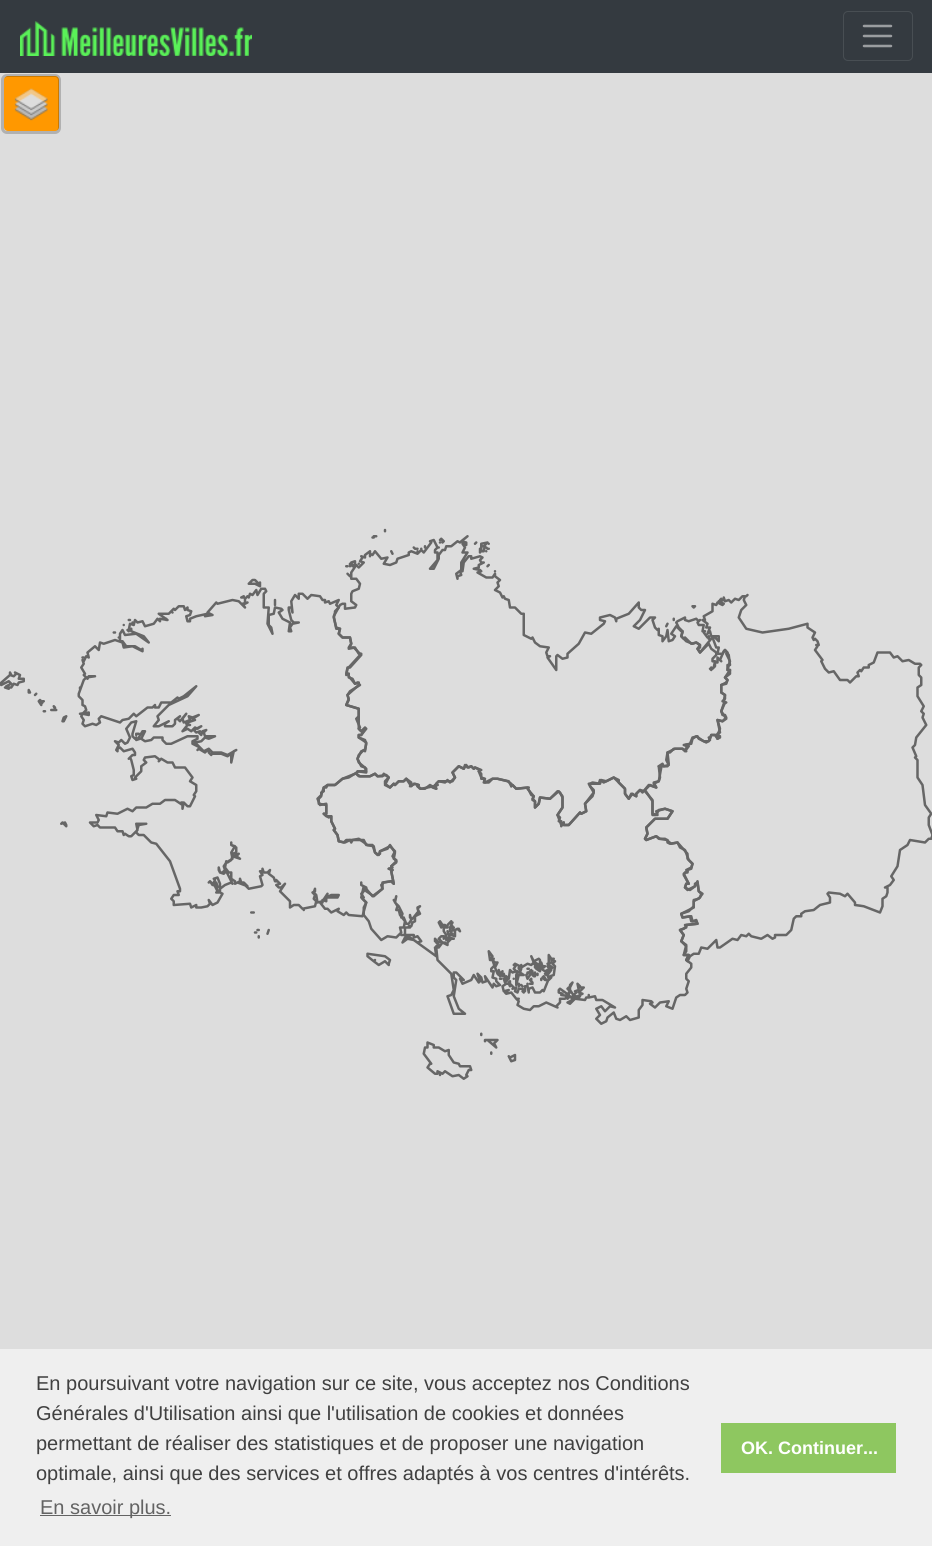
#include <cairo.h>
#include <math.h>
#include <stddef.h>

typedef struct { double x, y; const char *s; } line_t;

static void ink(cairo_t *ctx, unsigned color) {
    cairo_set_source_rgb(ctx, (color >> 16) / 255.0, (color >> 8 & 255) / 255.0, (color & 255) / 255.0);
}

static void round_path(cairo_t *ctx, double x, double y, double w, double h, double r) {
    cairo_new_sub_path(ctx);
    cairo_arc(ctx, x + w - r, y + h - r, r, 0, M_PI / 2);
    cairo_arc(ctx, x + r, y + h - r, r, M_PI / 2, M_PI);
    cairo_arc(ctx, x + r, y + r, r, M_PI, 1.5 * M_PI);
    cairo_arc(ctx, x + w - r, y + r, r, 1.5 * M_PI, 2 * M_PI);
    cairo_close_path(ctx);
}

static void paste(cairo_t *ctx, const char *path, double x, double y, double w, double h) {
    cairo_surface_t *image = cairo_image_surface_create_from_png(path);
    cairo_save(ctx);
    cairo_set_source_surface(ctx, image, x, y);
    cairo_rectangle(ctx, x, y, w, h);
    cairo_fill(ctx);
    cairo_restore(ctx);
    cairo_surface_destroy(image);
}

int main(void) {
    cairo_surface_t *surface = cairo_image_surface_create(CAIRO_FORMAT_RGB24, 932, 1546);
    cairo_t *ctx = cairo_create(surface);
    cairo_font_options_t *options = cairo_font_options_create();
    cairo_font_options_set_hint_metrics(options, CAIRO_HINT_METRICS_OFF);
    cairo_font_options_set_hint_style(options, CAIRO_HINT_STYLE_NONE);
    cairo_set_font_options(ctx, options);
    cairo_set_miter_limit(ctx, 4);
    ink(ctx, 0xDDDDDD);
    cairo_paint(ctx);
    ink(ctx, 0x343A40);
    cairo_rectangle(ctx, 0, 0, 932, 73);
    cairo_fill(ctx);
    paste(ctx, "media/1.png", 20, 21, 232, 35);
    round_path(ctx, 843.5, 11.5, 69, 49, 4.5);
    ink(ctx, 0x484E53);
    cairo_set_line_width(ctx, 1);
    cairo_stroke(ctx);
    cairo_new_path(ctx);
    cairo_move_to(ctx, 864, 26);
    cairo_line_to(ctx, 891, 26);
    cairo_move_to(ctx, 864, 36);
    cairo_line_to(ctx, 891, 36);
    cairo_move_to(ctx, 864, 46);
    cairo_line_to(ctx, 891, 46);
    ink(ctx, 0x9A9DA0);
    cairo_set_line_width(ctx, 2.5);
    cairo_set_line_cap(ctx, CAIRO_LINE_CAP_ROUND);
    cairo_stroke(ctx);
    ink(ctx, 0xFF9800);
    round_path(ctx, 4, 76, 55, 55, 4);
    cairo_fill(ctx);
    round_path(ctx, 2.5, 75.5, 57, 57, 4.5);
    cairo_set_source_rgba(ctx, 0, 0, 0, 0.2);
    cairo_set_line_width(ctx, 3);
    cairo_set_line_cap(ctx, CAIRO_LINE_CAP_BUTT);
    cairo_stroke(ctx);
    paste(ctx, "media/2.png", 14, 88, 34, 33);
    paste(ctx, "media/3.png", 0, 528, 932, 552);
    ink(ctx, 0xEFEFEF);
    cairo_rectangle(ctx, 0, 1349, 932, 197);
    cairo_fill(ctx);
    cairo_select_font_face(ctx, "Liberation Sans", CAIRO_FONT_SLANT_NORMAL, CAIRO_FONT_WEIGHT_NORMAL);
    cairo_set_font_size(ctx, 20);
    ink(ctx, 0x404040);
    {
        static const line_t items[] = {
            {36, 1390, "En poursuivant votre navigation sur ce site, vous acceptez nos Conditions"},
            {36, 1420, "Générales d'Utilisation ainsi que l'utilisation de cookies et données"},
            {36, 1450, "permettant de réaliser des statistiques et de proposer une navigation"},
            {36, 1480, "optimale, ainsi que des services et offres adaptés à vos centres d'intérêts."},
        };
        for (size_t i = 0; i < sizeof items / sizeof *items; i++) {
            cairo_move_to(ctx, items[i].x, items[i].y);
            cairo_show_text(ctx, items[i].s);
        }
    }
    ink(ctx, 0x636363);
    cairo_rectangle(ctx, 40, 1515, 131, 1);
    cairo_fill(ctx);
    cairo_move_to(ctx, 40, 1514);
    cairo_show_text(ctx, "En savoir plus.");
    ink(ctx, 0x8EC760);
    cairo_rectangle(ctx, 721, 1423, 175, 50);
    cairo_fill(ctx);
    cairo_select_font_face(ctx, "Liberation Sans", CAIRO_FONT_SLANT_NORMAL, CAIRO_FONT_WEIGHT_BOLD);
    cairo_set_font_size(ctx, 18);
    ink(ctx, 0xFFFFFF);
    cairo_move_to(ctx, 741, 1454);
    cairo_show_text(ctx, "OK. Continuer...");
    cairo_surface_write_to_png(surface, "image.png");
    cairo_font_options_destroy(options);
    cairo_destroy(ctx);
    cairo_surface_destroy(surface);
    return 0;
}
